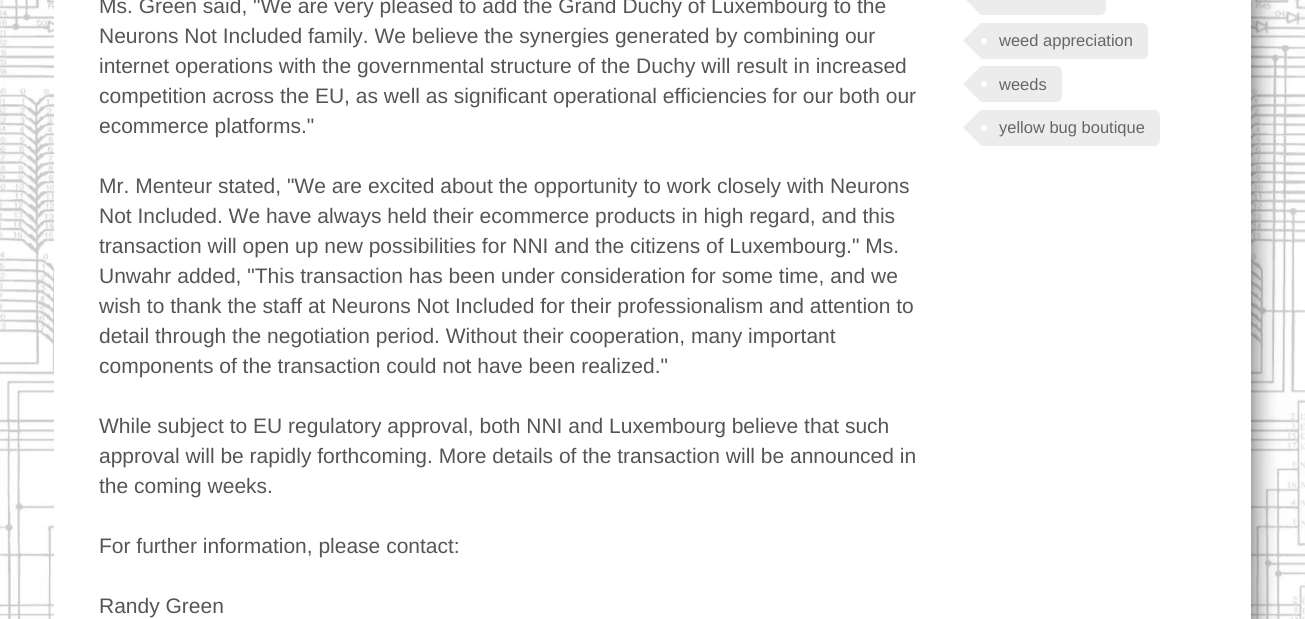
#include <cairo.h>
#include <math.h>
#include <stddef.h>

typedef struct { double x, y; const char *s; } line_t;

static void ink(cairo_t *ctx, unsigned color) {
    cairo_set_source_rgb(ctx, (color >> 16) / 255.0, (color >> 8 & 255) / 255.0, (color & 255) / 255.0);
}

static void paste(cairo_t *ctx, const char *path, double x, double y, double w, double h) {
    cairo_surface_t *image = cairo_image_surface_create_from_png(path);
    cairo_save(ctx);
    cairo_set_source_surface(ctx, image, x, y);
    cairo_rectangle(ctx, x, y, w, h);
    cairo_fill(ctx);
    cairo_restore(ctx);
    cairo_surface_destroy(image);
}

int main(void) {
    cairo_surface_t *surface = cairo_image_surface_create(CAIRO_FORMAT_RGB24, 1305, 619);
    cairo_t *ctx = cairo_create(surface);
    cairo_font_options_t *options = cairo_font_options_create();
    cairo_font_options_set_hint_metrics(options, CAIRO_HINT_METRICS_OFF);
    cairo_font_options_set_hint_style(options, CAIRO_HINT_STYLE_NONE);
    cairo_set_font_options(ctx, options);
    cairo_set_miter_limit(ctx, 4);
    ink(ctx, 0xFFFFFF);
    cairo_paint(ctx);
    paste(ctx, "media/1.png", 0, 0, 1305, 619);
    ink(ctx, 0xFFFFFF);
    cairo_rectangle(ctx, 54, 0, 1197, 619);
    cairo_fill(ctx);
    cairo_select_font_face(ctx, "Liberation Sans", CAIRO_FONT_SLANT_NORMAL, CAIRO_FONT_WEIGHT_NORMAL);
    cairo_set_font_size(ctx, 21);
    ink(ctx, 0x555555);
    {
        static const line_t items[] = {
            {99, 13, "Ms. Green said, \"We are very pleased to add the Grand Duchy of Luxembourg to the"},
            {99, 43, "Neurons Not Included family. We believe the synergies generated by combining our"},
            {99, 73, "internet operations with the governmental structure of the Duchy will result in increased"},
            {99, 103, "competition across the EU, as well as significant operational efficiencies for our both our"},
            {99, 133, "ecommerce platforms.\""},
            {99, 193, "Mr. Menteur stated, \"We are excited about the opportunity to work closely with Neurons"},
            {99, 223, "Not Included. We have always held their ecommerce products in high regard, and this"},
            {99, 253, "transaction will open up new possibilities for NNI and the citizens of Luxembourg.\" Ms."},
            {99, 283, "Unwahr added, \"This transaction has been under consideration for some time, and we"},
            {99, 313, "wish to thank the staff at Neurons Not Included for their professionalism and attention to"},
            {99, 343, "detail through the negotiation period. Without their cooperation, many important"},
            {99, 373, "components of the transaction could not have been realized.\""},
            {99, 433, "While subject to EU regulatory approval, both NNI and Luxembourg believe that such"},
            {99, 463, "approval will be rapidly forthcoming. More details of the transaction will be announced in"},
            {99, 493, "the coming weeks."},
            {99, 553, "For further information, please contact:"},
            {99, 613, "Randy Green"},
        };
        for (size_t i = 0; i < sizeof items / sizeof *items; i++) {
            cairo_move_to(ctx, items[i].x, items[i].y);
            cairo_show_text(ctx, items[i].s);
        }
    }
    ink(ctx, 0xECECEC);
    cairo_new_path(ctx);
    cairo_move_to(ctx, 981, -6);
    cairo_line_to(ctx, 1100, -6);
    cairo_curve_to(ctx, 1103.5, -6, 1106, -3.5, 1106, 0);
    cairo_line_to(ctx, 1106, 9);
    cairo_curve_to(ctx, 1106, 12.5, 1103.5, 15, 1100, 15);
    cairo_line_to(ctx, 981, 15);
    cairo_close_path(ctx);
    cairo_fill(ctx);
    cairo_new_path(ctx);
    cairo_move_to(ctx, 981, -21);
    cairo_line_to(ctx, 981, 15);
    cairo_line_to(ctx, 963, -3);
    cairo_close_path(ctx);
    cairo_fill(ctx);
    cairo_new_path(ctx);
    cairo_move_to(ctx, 981, 23);
    cairo_line_to(ctx, 1142, 23);
    cairo_curve_to(ctx, 1145.5, 23, 1148, 25.5, 1148, 29);
    cairo_line_to(ctx, 1148, 53);
    cairo_curve_to(ctx, 1148, 56.5, 1145.5, 59, 1142, 59);
    cairo_line_to(ctx, 981, 59);
    cairo_close_path(ctx);
    cairo_fill(ctx);
    cairo_new_path(ctx);
    cairo_move_to(ctx, 981, 22.5);
    cairo_line_to(ctx, 981, 58.5);
    cairo_line_to(ctx, 963, 40.5);
    cairo_close_path(ctx);
    cairo_fill(ctx);
    ink(ctx, 0xFFFFFF);
    cairo_arc(ctx, 984, 41, 3, 0, 2 * M_PI);
    cairo_fill(ctx);
    cairo_set_font_size(ctx, 16.5);
    ink(ctx, 0x666666);
    cairo_move_to(ctx, 999, 46);
    cairo_show_text(ctx, "weed appreciation");
    ink(ctx, 0xECECEC);
    cairo_new_path(ctx);
    cairo_move_to(ctx, 981, 66);
    cairo_line_to(ctx, 1056, 66);
    cairo_curve_to(ctx, 1059.5, 66, 1062, 68.5, 1062, 72);
    cairo_line_to(ctx, 1062, 96);
    cairo_curve_to(ctx, 1062, 99.5, 1059.5, 102, 1056, 102);
    cairo_line_to(ctx, 981, 102);
    cairo_close_path(ctx);
    cairo_fill(ctx);
    cairo_new_path(ctx);
    cairo_move_to(ctx, 981, 66);
    cairo_line_to(ctx, 981, 102);
    cairo_line_to(ctx, 963, 84);
    cairo_close_path(ctx);
    cairo_fill(ctx);
    ink(ctx, 0xFFFFFF);
    cairo_arc(ctx, 984, 84, 3, 0, 2 * M_PI);
    cairo_fill(ctx);
    ink(ctx, 0x666666);
    cairo_move_to(ctx, 999, 90);
    cairo_show_text(ctx, "weeds");
    ink(ctx, 0xECECEC);
    cairo_new_path(ctx);
    cairo_move_to(ctx, 981, 110);
    cairo_line_to(ctx, 1154, 110);
    cairo_curve_to(ctx, 1157.5, 110, 1160, 112.5, 1160, 116);
    cairo_line_to(ctx, 1160, 140);
    cairo_curve_to(ctx, 1160, 143.5, 1157.5, 146, 1154, 146);
    cairo_line_to(ctx, 981, 146);
    cairo_close_path(ctx);
    cairo_fill(ctx);
    cairo_new_path(ctx);
    cairo_move_to(ctx, 981, 109.5);
    cairo_line_to(ctx, 981, 145.5);
    cairo_line_to(ctx, 963, 127.5);
    cairo_close_path(ctx);
    cairo_fill(ctx);
    ink(ctx, 0xFFFFFF);
    cairo_arc(ctx, 984, 128, 3, 0, 2 * M_PI);
    cairo_fill(ctx);
    ink(ctx, 0x666666);
    cairo_move_to(ctx, 999, 133);
    cairo_show_text(ctx, "yellow bug boutique");
    cairo_surface_write_to_png(surface, "image.png");
    cairo_font_options_destroy(options);
    cairo_destroy(ctx);
    cairo_surface_destroy(surface);
    return 0;
}
